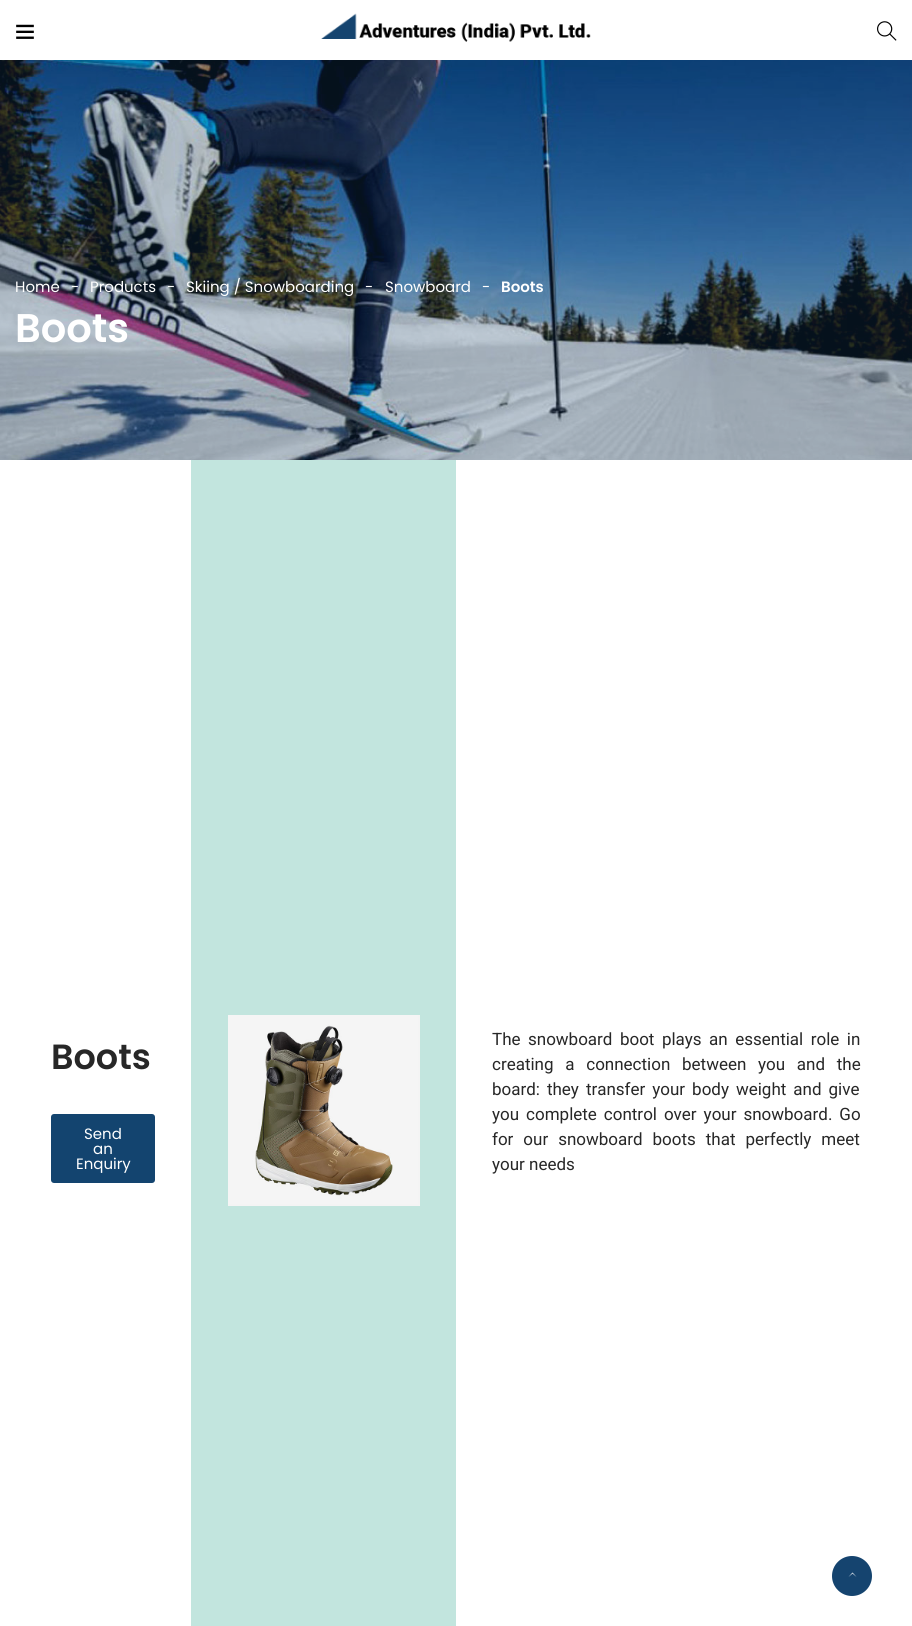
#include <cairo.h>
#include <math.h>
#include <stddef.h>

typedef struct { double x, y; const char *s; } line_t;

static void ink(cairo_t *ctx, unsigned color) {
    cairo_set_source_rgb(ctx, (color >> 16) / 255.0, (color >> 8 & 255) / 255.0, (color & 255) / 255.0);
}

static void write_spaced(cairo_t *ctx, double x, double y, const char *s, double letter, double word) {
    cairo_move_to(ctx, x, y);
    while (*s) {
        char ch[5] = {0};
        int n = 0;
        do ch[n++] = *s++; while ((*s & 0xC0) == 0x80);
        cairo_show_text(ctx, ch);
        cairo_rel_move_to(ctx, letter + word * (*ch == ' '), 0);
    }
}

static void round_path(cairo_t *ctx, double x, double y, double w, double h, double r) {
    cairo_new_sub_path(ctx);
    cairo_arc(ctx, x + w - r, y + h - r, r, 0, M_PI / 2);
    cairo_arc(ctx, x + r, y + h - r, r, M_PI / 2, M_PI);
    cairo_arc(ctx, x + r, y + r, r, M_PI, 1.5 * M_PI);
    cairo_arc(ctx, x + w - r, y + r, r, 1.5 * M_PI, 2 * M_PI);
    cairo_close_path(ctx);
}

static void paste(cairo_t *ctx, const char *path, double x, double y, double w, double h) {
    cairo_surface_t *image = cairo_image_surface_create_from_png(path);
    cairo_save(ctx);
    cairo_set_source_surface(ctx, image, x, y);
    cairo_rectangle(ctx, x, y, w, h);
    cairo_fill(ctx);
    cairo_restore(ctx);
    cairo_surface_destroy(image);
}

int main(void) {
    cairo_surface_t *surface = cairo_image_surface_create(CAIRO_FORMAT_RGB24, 912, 1626);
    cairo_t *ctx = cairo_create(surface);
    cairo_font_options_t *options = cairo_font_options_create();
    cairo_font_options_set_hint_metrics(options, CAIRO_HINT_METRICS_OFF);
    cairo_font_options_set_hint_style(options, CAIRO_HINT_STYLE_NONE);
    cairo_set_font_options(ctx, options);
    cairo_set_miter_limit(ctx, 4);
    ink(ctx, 0xFFFFFF);
    cairo_paint(ctx);
    paste(ctx, "media/1.png", 16, 24, 18, 15);
    paste(ctx, "media/2.png", 321, 13, 270, 29);
    paste(ctx, "media/3.png", 877, 21, 20, 20);
    paste(ctx, "media/4.png", 0, 60, 912, 400);
    cairo_select_font_face(ctx, "Poppins", CAIRO_FONT_SLANT_NORMAL, CAIRO_FONT_WEIGHT_NORMAL);
    cairo_set_font_size(ctx, 15);
    ink(ctx, 0xFFFFFF);
    {
        static const line_t items[] = {
            {15, 292, "Home"},
            {71, 292, "-"},
            {90, 292, "Products"},
            {167, 292, "-"},
            {186, 292, "Skiing / Snowboarding"},
            {365, 292, "-"},
            {385, 292, "Snowboard"},
            {482, 292, "-"},
        };
        for (size_t i = 0; i < sizeof items / sizeof *items; i++) {
            cairo_move_to(ctx, items[i].x, items[i].y);
            cairo_show_text(ctx, items[i].s);
        }
    }
    cairo_select_font_face(ctx, "Poppins SemiBold", CAIRO_FONT_SLANT_NORMAL, CAIRO_FONT_WEIGHT_NORMAL);
    cairo_move_to(ctx, 501, 292);
    cairo_show_text(ctx, "Boots");
    cairo_set_font_size(ctx, 40);
    cairo_move_to(ctx, 15, 342);
    cairo_show_text(ctx, "Boots");
    cairo_set_font_size(ctx, 35);
    ink(ctx, 0x272727);
    cairo_move_to(ctx, 51, 1069);
    cairo_show_text(ctx, "Boots");
    ink(ctx, 0x13446F);
    round_path(ctx, 51, 1114, 104, 69, 3);
    cairo_fill(ctx);
    cairo_select_font_face(ctx, "Poppins", CAIRO_FONT_SLANT_NORMAL, CAIRO_FONT_WEIGHT_NORMAL);
    cairo_set_font_size(ctx, 15);
    ink(ctx, 0xFFFFFF);
    {
        static const line_t items[] = {
            {84, 1139, "Send"},
            {93, 1154, "an"},
            {76, 1169, "Enquiry"},
        };
        for (size_t i = 0; i < sizeof items / sizeof *items; i++) {
            cairo_move_to(ctx, items[i].x, items[i].y);
            cairo_show_text(ctx, items[i].s);
        }
    }
    ink(ctx, 0xC2E5DE);
    cairo_rectangle(ctx, 191, 460, 265, 1166);
    cairo_fill(ctx);
    paste(ctx, "media/5.png", 228, 1015, 192, 191);
    cairo_select_font_face(ctx, "Roboto", CAIRO_FONT_SLANT_NORMAL, CAIRO_FONT_WEIGHT_NORMAL);
    cairo_set_font_size(ctx, 17);
    ink(ctx, 0x272727);
    write_spaced(ctx, 492, 1045, "The snowboard boot plays an essential role in", 0, 3.25);
    write_spaced(ctx, 492, 1070, "creating a connection between you and the", 0, 7.5);
    write_spaced(ctx, 492, 1095, "board: they transfer your body weight and give", 0, 2.75);
    write_spaced(ctx, 492, 1120, "you complete control over your snowboard. Go", 0, 2.75);
    write_spaced(ctx, 492, 1145, "for our snowboard boots that perfectly meet", 0, 5.75);
    cairo_move_to(ctx, 492, 1170);
    cairo_show_text(ctx, "your needs");
    ink(ctx, 0x15446F);
    cairo_new_path(ctx);
    cairo_arc(ctx, 852, 1576, 20, 0, 2 * M_PI);
    cairo_fill(ctx);
    ink(ctx, 0xFFFFFF);
    cairo_new_path(ctx);
    cairo_move_to(ctx, 856.5, 1577);
    cairo_line_to(ctx, 852.5, 1573.5);
    cairo_line_to(ctx, 848.5, 1577);
    cairo_line_to(ctx, 852.5, 1572.5);
    cairo_close_path(ctx);
    cairo_fill(ctx);
    cairo_surface_write_to_png(surface, "image.png");
    cairo_font_options_destroy(options);
    cairo_destroy(ctx);
    cairo_surface_destroy(surface);
    return 0;
}
